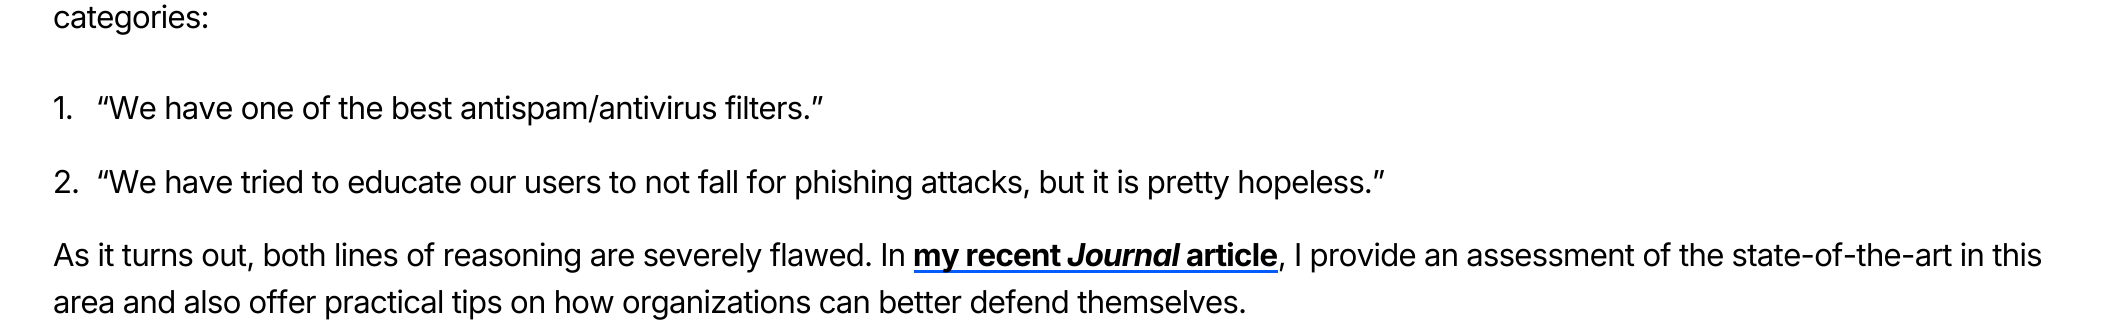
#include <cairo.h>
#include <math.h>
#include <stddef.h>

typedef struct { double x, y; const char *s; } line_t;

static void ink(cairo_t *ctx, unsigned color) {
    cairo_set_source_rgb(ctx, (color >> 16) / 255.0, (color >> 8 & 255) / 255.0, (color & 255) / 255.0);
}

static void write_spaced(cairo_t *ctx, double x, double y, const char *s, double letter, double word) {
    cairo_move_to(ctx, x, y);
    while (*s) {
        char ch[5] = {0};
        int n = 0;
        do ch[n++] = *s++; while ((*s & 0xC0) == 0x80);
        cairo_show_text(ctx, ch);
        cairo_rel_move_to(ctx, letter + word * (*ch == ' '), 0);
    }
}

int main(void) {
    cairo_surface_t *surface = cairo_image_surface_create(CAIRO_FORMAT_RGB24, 2128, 334);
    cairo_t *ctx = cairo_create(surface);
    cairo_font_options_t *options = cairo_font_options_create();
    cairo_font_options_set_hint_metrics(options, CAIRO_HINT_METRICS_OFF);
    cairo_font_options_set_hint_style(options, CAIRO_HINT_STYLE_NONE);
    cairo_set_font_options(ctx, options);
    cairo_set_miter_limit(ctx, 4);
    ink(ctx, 0xFFFFFF);
    cairo_paint(ctx);
    cairo_select_font_face(ctx, "Inter", CAIRO_FONT_SLANT_NORMAL, CAIRO_FONT_WEIGHT_NORMAL);
    cairo_set_font_size(ctx, 31.5);
    ink(ctx, 0x000000);
    {
        static const line_t items[] = {
            {53, 28, "categories:"},
            {53, 119, "1."},
            {96, 119, "“We have one of the best antispam/antivirus filters.”"},
            {53, 193, "2."},
            {96, 193, "“We have tried to educate our users to not fall for phishing attacks, but it is pretty hopeless.”"},
            {53, 266, "As it turns out, both lines of reasoning are severely flawed. In"},
        };
        for (size_t i = 0; i < sizeof items / sizeof *items; i++) {
            write_spaced(ctx, items[i].x, items[i].y, items[i].s, -0.63, 0);
        }
    }
    cairo_save(ctx);
    cairo_rectangle(ctx, 914, 236, 154, 37);
    cairo_clip(ctx);
    ink(ctx, 0x035BFB);
    cairo_set_fill_rule(ctx, CAIRO_FILL_RULE_EVEN_ODD);
    cairo_new_path(ctx);
    cairo_move_to(ctx, 740, 63);
    cairo_line_to(ctx, 1241, 63);
    cairo_line_to(ctx, 1241, 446);
    cairo_line_to(ctx, 740, 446);
    cairo_close_path(ctx);
    cairo_move_to(ctx, 914, 229);
    cairo_line_to(ctx, 1068, 229);
    cairo_curve_to(ctx, 1068, 229, 1069, 230, 1069, 231);
    cairo_line_to(ctx, 1069, 268);
    cairo_curve_to(ctx, 1069, 269, 1068, 270, 1068, 270);
    cairo_line_to(ctx, 914, 270);
    cairo_curve_to(ctx, 913, 270, 912, 269, 912, 268);
    cairo_line_to(ctx, 912, 231);
    cairo_curve_to(ctx, 912, 230, 913, 229, 914, 229);
    cairo_close_path(ctx);
    cairo_fill(ctx);
    cairo_restore(ctx);
    cairo_select_font_face(ctx, "Inter", CAIRO_FONT_SLANT_NORMAL, CAIRO_FONT_WEIGHT_BOLD);
    write_spaced(ctx, 913, 266, "my recent", -0.63, 0);
    cairo_save(ctx);
    cairo_rectangle(ctx, 1068, 236, 112, 37);
    cairo_clip(ctx);
    ink(ctx, 0x035BFB);
    cairo_set_fill_rule(ctx, CAIRO_FILL_RULE_EVEN_ODD);
    cairo_new_path(ctx);
    cairo_move_to(ctx, 894, 63);
    cairo_line_to(ctx, 1353, 63);
    cairo_line_to(ctx, 1353, 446);
    cairo_line_to(ctx, 894, 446);
    cairo_close_path(ctx);
    cairo_move_to(ctx, 1068, 229);
    cairo_line_to(ctx, 1180, 229);
    cairo_curve_to(ctx, 1180, 229, 1181, 230, 1181, 231);
    cairo_line_to(ctx, 1181, 268);
    cairo_curve_to(ctx, 1181, 269, 1180, 270, 1180, 270);
    cairo_line_to(ctx, 1068, 270);
    cairo_curve_to(ctx, 1067, 270, 1066, 269, 1066, 268);
    cairo_line_to(ctx, 1066, 231);
    cairo_curve_to(ctx, 1066, 230, 1067, 229, 1068, 229);
    cairo_close_path(ctx);
    cairo_fill(ctx);
    cairo_restore(ctx);
    cairo_select_font_face(ctx, "Inter", CAIRO_FONT_SLANT_ITALIC, CAIRO_FONT_WEIGHT_BOLD);
    write_spaced(ctx, 1067, 266, "Journal", -0.63, 0);
    cairo_select_font_face(ctx, "Inter", CAIRO_FONT_SLANT_NORMAL, CAIRO_FONT_WEIGHT_BOLD);
    write_spaced(ctx, 1186, 266, "article", -0.63, 0);
    cairo_select_font_face(ctx, "Inter", CAIRO_FONT_SLANT_NORMAL, CAIRO_FONT_WEIGHT_NORMAL);
    write_spaced(ctx, 1278, 266, ", I provide an assessment of the state-of-the-art in this", -0.63, 0);
    cairo_save(ctx);
    cairo_rectangle(ctx, 1180, 236, 98, 37);
    cairo_clip(ctx);
    ink(ctx, 0x035BFB);
    cairo_set_fill_rule(ctx, CAIRO_FILL_RULE_EVEN_ODD);
    cairo_new_path(ctx);
    cairo_move_to(ctx, 1006, 63);
    cairo_line_to(ctx, 1451, 63);
    cairo_line_to(ctx, 1451, 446);
    cairo_line_to(ctx, 1006, 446);
    cairo_close_path(ctx);
    cairo_move_to(ctx, 1180, 229);
    cairo_line_to(ctx, 1278, 229);
    cairo_curve_to(ctx, 1278, 229, 1279, 230, 1279, 231);
    cairo_line_to(ctx, 1279, 268);
    cairo_curve_to(ctx, 1279, 269, 1278, 270, 1278, 270);
    cairo_line_to(ctx, 1180, 270);
    cairo_curve_to(ctx, 1179, 270, 1178, 269, 1178, 268);
    cairo_line_to(ctx, 1178, 231);
    cairo_curve_to(ctx, 1178, 230, 1179, 229, 1180, 229);
    cairo_close_path(ctx);
    cairo_fill(ctx);
    cairo_restore(ctx);
    write_spaced(ctx, 53, 313, "area and also offer practical tips on how organizations can better defend themselves.", -0.63, 0);
    cairo_surface_write_to_png(surface, "image.png");
    cairo_font_options_destroy(options);
    cairo_destroy(ctx);
    cairo_surface_destroy(surface);
    return 0;
}
